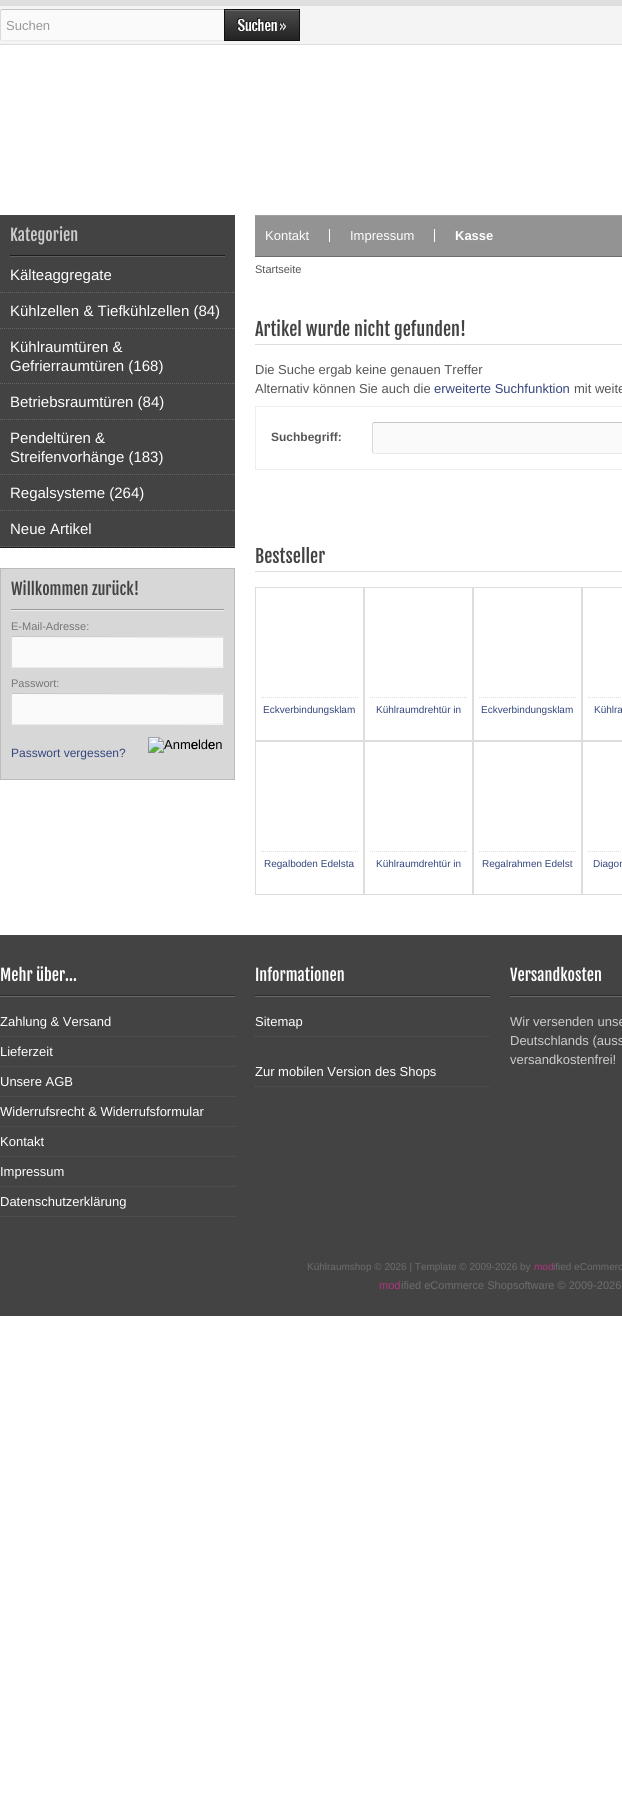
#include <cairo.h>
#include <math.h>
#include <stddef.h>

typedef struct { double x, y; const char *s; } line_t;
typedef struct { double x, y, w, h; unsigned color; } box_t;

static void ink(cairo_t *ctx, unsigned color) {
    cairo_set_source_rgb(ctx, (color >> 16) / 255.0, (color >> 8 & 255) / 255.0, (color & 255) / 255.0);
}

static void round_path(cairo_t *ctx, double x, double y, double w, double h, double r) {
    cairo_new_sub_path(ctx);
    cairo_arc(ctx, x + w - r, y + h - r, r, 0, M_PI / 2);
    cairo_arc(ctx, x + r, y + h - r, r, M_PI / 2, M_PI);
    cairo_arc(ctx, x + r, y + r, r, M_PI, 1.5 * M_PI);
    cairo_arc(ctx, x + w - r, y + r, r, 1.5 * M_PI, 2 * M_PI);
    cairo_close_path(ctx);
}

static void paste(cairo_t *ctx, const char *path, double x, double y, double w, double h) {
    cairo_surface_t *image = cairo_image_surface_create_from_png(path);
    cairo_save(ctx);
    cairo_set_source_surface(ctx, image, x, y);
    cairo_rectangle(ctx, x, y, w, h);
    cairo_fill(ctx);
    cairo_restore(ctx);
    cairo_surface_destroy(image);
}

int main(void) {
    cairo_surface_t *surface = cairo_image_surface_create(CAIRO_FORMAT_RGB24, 622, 1799);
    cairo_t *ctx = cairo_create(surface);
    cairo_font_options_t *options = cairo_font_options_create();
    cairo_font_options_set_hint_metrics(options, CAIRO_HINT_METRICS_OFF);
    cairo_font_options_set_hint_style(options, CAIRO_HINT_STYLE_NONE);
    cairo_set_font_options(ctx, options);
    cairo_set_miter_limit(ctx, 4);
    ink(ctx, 0xFFFFFF);
    cairo_paint(ctx);
    {
        static const box_t items[] = {
            {0, 6, 622, 38, 0xF4F4F4},
            {0, 0, 622, 6, 0xDEDEDE},
            {0, 44, 622, 1, 0xDEDEDE},
        };
        for (size_t i = 0; i < sizeof items / sizeof *items; i++) {
            ink(ctx, items[i].color);
            cairo_rectangle(ctx, items[i].x, items[i].y, items[i].w, items[i].h);
            cairo_fill(ctx);
        }
    }
    ink(ctx, 0xFAFAFA);
    round_path(ctx, 0, 9, 300, 32, 2);
    cairo_fill(ctx);
    cairo_new_path(ctx);
    cairo_move_to(ctx, 1, 10);
    cairo_line_to(ctx, 2, 9.5);
    cairo_line_to(ctx, 298, 9.5);
    cairo_line_to(ctx, 299, 10);
    ink(ctx, 0xC6C6C6);
    cairo_set_line_width(ctx, 1);
    cairo_stroke(ctx);
    cairo_new_path(ctx);
    cairo_move_to(ctx, 299, 40);
    cairo_line_to(ctx, 298, 40.5);
    cairo_line_to(ctx, 2, 40.5);
    cairo_line_to(ctx, 1, 40);
    ink(ctx, 0xEAEAEA);
    cairo_stroke(ctx);
    cairo_new_path(ctx);
    cairo_move_to(ctx, 1, 40);
    cairo_line_to(ctx, 0.5, 39);
    cairo_line_to(ctx, 0.5, 11);
    cairo_line_to(ctx, 1, 10);
    ink(ctx, 0xDADADA);
    cairo_stroke(ctx);
    cairo_select_font_face(ctx, "Arimo", CAIRO_FONT_SLANT_NORMAL, CAIRO_FONT_WEIGHT_NORMAL);
    cairo_set_font_size(ctx, 13);
    ink(ctx, 0x999999);
    cairo_move_to(ctx, 6, 30);
    cairo_show_text(ctx, "Suchen");
    paste(ctx, "media/1.png", 224, 9, 76, 32);
    ink(ctx, 0x434343);
    cairo_rectangle(ctx, 0, 215, 235, 332);
    cairo_fill(ctx);
    ink(ctx, 0x1D1D1D);
    cairo_rectangle(ctx, 0, 547, 235, 1);
    cairo_fill(ctx);
    cairo_select_font_face(ctx, "Fjalla One", CAIRO_FONT_SLANT_NORMAL, CAIRO_FONT_WEIGHT_NORMAL);
    cairo_set_font_size(ctx, 16);
    ink(ctx, 0xCCCCCC);
    cairo_move_to(ctx, 10, 241);
    cairo_show_text(ctx, "Kategorien");
    ink(ctx, 0x5E5E5E);
    cairo_rectangle(ctx, 10, 256, 215, 1);
    cairo_fill(ctx);
    ink(ctx, 0x1D1D1D);
    cairo_rectangle(ctx, 10, 255, 215, 1);
    cairo_fill(ctx);
    cairo_new_path(ctx);
    cairo_move_to(ctx, 0, 292.5);
    cairo_line_to(ctx, 235, 292.5);
    ink(ctx, 0x656565);
    cairo_set_dash(ctx, (double[]){1, 1}, 2, 0);
    cairo_stroke(ctx);
    cairo_select_font_face(ctx, "Arimo", CAIRO_FONT_SLANT_NORMAL, CAIRO_FONT_WEIGHT_NORMAL);
    cairo_set_font_size(ctx, 15);
    ink(ctx, 0xFFFFFF);
    cairo_move_to(ctx, 10, 280);
    cairo_show_text(ctx, "Kälteaggregate");
    cairo_new_path(ctx);
    cairo_move_to(ctx, 0, 328.5);
    cairo_line_to(ctx, 235, 328.5);
    ink(ctx, 0x656565);
    cairo_stroke(ctx);
    ink(ctx, 0xFFFFFF);
    cairo_move_to(ctx, 10, 316);
    cairo_show_text(ctx, "Kühlzellen & Tiefkühlzellen (84)");
    cairo_new_path(ctx);
    cairo_move_to(ctx, 0, 383.5);
    cairo_line_to(ctx, 235, 383.5);
    ink(ctx, 0x656565);
    cairo_stroke(ctx);
    ink(ctx, 0xFFFFFF);
    cairo_move_to(ctx, 10, 352);
    cairo_show_text(ctx, "Kühlraumtüren &");
    cairo_move_to(ctx, 10, 371);
    cairo_show_text(ctx, "Gefrierraumtüren (168)");
    cairo_new_path(ctx);
    cairo_move_to(ctx, 0, 419.5);
    cairo_line_to(ctx, 235, 419.5);
    ink(ctx, 0x656565);
    cairo_stroke(ctx);
    ink(ctx, 0xFFFFFF);
    cairo_move_to(ctx, 10, 407);
    cairo_show_text(ctx, "Betriebsraumtüren (84)");
    cairo_new_path(ctx);
    cairo_move_to(ctx, 0, 474.5);
    cairo_line_to(ctx, 235, 474.5);
    ink(ctx, 0x656565);
    cairo_stroke(ctx);
    ink(ctx, 0xFFFFFF);
    cairo_move_to(ctx, 10, 443);
    cairo_show_text(ctx, "Pendeltüren &");
    cairo_move_to(ctx, 10, 462);
    cairo_show_text(ctx, "Streifenvorhänge (183)");
    cairo_new_path(ctx);
    cairo_move_to(ctx, 0, 510.5);
    cairo_line_to(ctx, 235, 510.5);
    ink(ctx, 0x656565);
    cairo_stroke(ctx);
    ink(ctx, 0xFFFFFF);
    cairo_move_to(ctx, 10, 498);
    cairo_show_text(ctx, "Regalsysteme (264)");
    cairo_new_path(ctx);
    cairo_move_to(ctx, 0, 546.5);
    cairo_line_to(ctx, 235, 546.5);
    ink(ctx, 0x656565);
    cairo_stroke(ctx);
    ink(ctx, 0xFFFFFF);
    cairo_move_to(ctx, 10, 534);
    cairo_show_text(ctx, "Neue Artikel");
    ink(ctx, 0xD7D7D7);
    cairo_rectangle(ctx, 0.5, 568.5, 234, 211);
    cairo_fill_preserve(ctx);
    ink(ctx, 0xBBBBBB);
    cairo_set_dash(ctx, NULL, 0, 0);
    cairo_stroke(ctx);
    cairo_select_font_face(ctx, "Fjalla One", CAIRO_FONT_SLANT_NORMAL, CAIRO_FONT_WEIGHT_NORMAL);
    cairo_set_font_size(ctx, 16);
    ink(ctx, 0x434343);
    cairo_move_to(ctx, 11, 595);
    cairo_show_text(ctx, "Willkommen zurück!");
    ink(ctx, 0xEEEEEE);
    cairo_rectangle(ctx, 11, 610, 213, 1);
    cairo_fill(ctx);
    ink(ctx, 0x989898);
    cairo_rectangle(ctx, 11, 609, 213, 1);
    cairo_fill(ctx);
    cairo_select_font_face(ctx, "Arimo", CAIRO_FONT_SLANT_NORMAL, CAIRO_FONT_WEIGHT_NORMAL);
    cairo_set_font_size(ctx, 11);
    ink(ctx, 0x767676);
    cairo_move_to(ctx, 11, 630);
    cairo_show_text(ctx, "E-Mail-Adresse:");
    ink(ctx, 0xFAFAFA);
    round_path(ctx, 11, 636, 213, 32, 2);
    cairo_fill(ctx);
    cairo_new_path(ctx);
    cairo_move_to(ctx, 12, 637);
    cairo_line_to(ctx, 13, 636.5);
    cairo_line_to(ctx, 223, 637);
    ink(ctx, 0xC6C6C6);
    cairo_stroke(ctx);
    cairo_new_path(ctx);
    cairo_move_to(ctx, 223, 637);
    cairo_line_to(ctx, 223.5, 638);
    cairo_line_to(ctx, 223.5, 666);
    cairo_line_to(ctx, 223, 667);
    ink(ctx, 0xDADADA);
    cairo_stroke(ctx);
    cairo_new_path(ctx);
    cairo_move_to(ctx, 223, 667);
    cairo_line_to(ctx, 152.5, 667.5);
    cairo_line_to(ctx, 13, 667.5);
    cairo_line_to(ctx, 12, 667);
    ink(ctx, 0xEAEAEA);
    cairo_stroke(ctx);
    cairo_new_path(ctx);
    cairo_move_to(ctx, 12, 667);
    cairo_line_to(ctx, 11.5, 666);
    cairo_line_to(ctx, 11.5, 638);
    cairo_line_to(ctx, 12, 637);
    ink(ctx, 0xDADADA);
    cairo_stroke(ctx);
    ink(ctx, 0x767676);
    cairo_move_to(ctx, 11, 687);
    cairo_show_text(ctx, "Passwort:");
    ink(ctx, 0xFAFAFA);
    round_path(ctx, 11, 693, 213, 32, 2);
    cairo_fill(ctx);
    cairo_new_path(ctx);
    cairo_move_to(ctx, 12, 694);
    cairo_line_to(ctx, 13, 693.5);
    cairo_line_to(ctx, 223, 694);
    ink(ctx, 0xC6C6C6);
    cairo_stroke(ctx);
    cairo_new_path(ctx);
    cairo_move_to(ctx, 223, 694);
    cairo_line_to(ctx, 223.5, 695);
    cairo_line_to(ctx, 223.5, 723);
    cairo_line_to(ctx, 223, 724);
    ink(ctx, 0xDADADA);
    cairo_stroke(ctx);
    cairo_new_path(ctx);
    cairo_move_to(ctx, 223, 724);
    cairo_line_to(ctx, 152.5, 724.5);
    cairo_line_to(ctx, 13, 724.5);
    cairo_line_to(ctx, 12, 724);
    ink(ctx, 0xEAEAEA);
    cairo_stroke(ctx);
    cairo_new_path(ctx);
    cairo_move_to(ctx, 12, 724);
    cairo_line_to(ctx, 11.5, 723);
    cairo_line_to(ctx, 11.5, 695);
    cairo_line_to(ctx, 12, 694);
    ink(ctx, 0xDADADA);
    cairo_stroke(ctx);
    paste(ctx, "media/2.png", 148, 737, 74, 16);
    cairo_set_font_size(ctx, 13);
    ink(ctx, 0x000000);
    cairo_move_to(ctx, 191, 749);
    cairo_show_text(ctx, "e");
    cairo_move_to(ctx, 208, 749);
    cairo_show_text(ctx, "e");
    cairo_set_font_size(ctx, 12);
    ink(ctx, 0x35467E);
    cairo_move_to(ctx, 11, 757);
    cairo_show_text(ctx, "Passwort vergessen?");
    {
        static const box_t items[] = {
            {255, 216, 367, 40, 0x939393},
            {255, 215, 367, 1, 0xA1A1A1},
            {255, 256, 367, 1, 0x6D6D6D},
            {329, 229, 1, 13, 0xFFFFFF},
        };
        for (size_t i = 0; i < sizeof items / sizeof *items; i++) {
            ink(ctx, items[i].color);
            cairo_rectangle(ctx, items[i].x, items[i].y, items[i].w, items[i].h);
            cairo_fill(ctx);
        }
    }
    cairo_set_font_size(ctx, 13);
    cairo_move_to(ctx, 265, 240);
    cairo_show_text(ctx, "Kontakt");
    cairo_rectangle(ctx, 434, 229, 1, 13);
    cairo_fill(ctx);
    cairo_move_to(ctx, 350, 240);
    cairo_show_text(ctx, "Impressum");
    cairo_select_font_face(ctx, "Arimo", CAIRO_FONT_SLANT_NORMAL, CAIRO_FONT_WEIGHT_BOLD);
    cairo_move_to(ctx, 455, 240);
    cairo_show_text(ctx, "Kasse");
    cairo_select_font_face(ctx, "Arimo", CAIRO_FONT_SLANT_NORMAL, CAIRO_FONT_WEIGHT_NORMAL);
    cairo_set_font_size(ctx, 11);
    ink(ctx, 0x555555);
    cairo_move_to(ctx, 255, 273);
    cairo_show_text(ctx, "Startseite");
    ink(ctx, 0xDDDDDD);
    cairo_rectangle(ctx, 255, 344, 367, 1);
    cairo_fill(ctx);
    cairo_select_font_face(ctx, "Fjalla One", CAIRO_FONT_SLANT_NORMAL, CAIRO_FONT_WEIGHT_NORMAL);
    cairo_set_font_size(ctx, 18);
    ink(ctx, 0x434343);
    cairo_move_to(ctx, 255, 336);
    cairo_show_text(ctx, "Artikel wurde nicht gefunden!");
    cairo_select_font_face(ctx, "Arimo", CAIRO_FONT_SLANT_NORMAL, CAIRO_FONT_WEIGHT_NORMAL);
    cairo_set_font_size(ctx, 13);
    ink(ctx, 0x555555);
    cairo_move_to(ctx, 255, 374);
    cairo_show_text(ctx, "Die Suche ergab keine genauen Treffer");
    cairo_move_to(ctx, 255, 393);
    cairo_show_text(ctx, "Alternativ können Sie auch die");
    ink(ctx, 0x35467E);
    cairo_move_to(ctx, 434, 393);
    cairo_show_text(ctx, "erweiterte Suchfunktion");
    ink(ctx, 0x555555);
    cairo_move_to(ctx, 574, 393);
    cairo_show_text(ctx, "mit weite");
    cairo_rectangle(ctx, 255.5, 406.5, 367, 63);
    ink(ctx, 0xEEEEEE);
    cairo_stroke(ctx);
    cairo_select_font_face(ctx, "Arimo", CAIRO_FONT_SLANT_NORMAL, CAIRO_FONT_WEIGHT_BOLD);
    cairo_set_font_size(ctx, 12);
    ink(ctx, 0x555555);
    cairo_move_to(ctx, 271, 441);
    cairo_show_text(ctx, "Suchbegriff:");
    ink(ctx, 0xFAFAFA);
    round_path(ctx, 372, 422, 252, 32, 2);
    cairo_fill(ctx);
    cairo_new_path(ctx);
    cairo_move_to(ctx, 373, 423);
    cairo_line_to(ctx, 374, 422.5);
    cairo_line_to(ctx, 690, 422.5);
    cairo_line_to(ctx, 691, 423);
    ink(ctx, 0xC6C6C6);
    cairo_stroke(ctx);
    cairo_new_path(ctx);
    cairo_move_to(ctx, 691, 453);
    cairo_line_to(ctx, 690, 453.5);
    cairo_line_to(ctx, 374, 453.5);
    cairo_line_to(ctx, 373, 453);
    ink(ctx, 0xEAEAEA);
    cairo_stroke(ctx);
    cairo_new_path(ctx);
    cairo_move_to(ctx, 373, 453);
    cairo_line_to(ctx, 372.5, 452);
    cairo_line_to(ctx, 372.5, 424);
    cairo_line_to(ctx, 373, 423);
    ink(ctx, 0xDADADA);
    cairo_stroke(ctx);
    ink(ctx, 0xDDDDDD);
    cairo_rectangle(ctx, 255, 571, 367, 1);
    cairo_fill(ctx);
    cairo_select_font_face(ctx, "Fjalla One", CAIRO_FONT_SLANT_NORMAL, CAIRO_FONT_WEIGHT_NORMAL);
    cairo_set_font_size(ctx, 18);
    ink(ctx, 0x434343);
    cairo_move_to(ctx, 255, 563);
    cairo_show_text(ctx, "Bestseller");
    cairo_rectangle(ctx, 255.5, 587.5, 108, 153);
    ink(ctx, 0xDDDDDD);
    cairo_stroke(ctx);
    cairo_new_path(ctx);
    cairo_move_to(ctx, 261, 697.5);
    cairo_line_to(ctx, 358, 697.5);
    cairo_set_dash(ctx, (double[]){1, 1}, 2, 0);
    cairo_stroke(ctx);
    cairo_select_font_face(ctx, "Arimo", CAIRO_FONT_SLANT_NORMAL, CAIRO_FONT_WEIGHT_NORMAL);
    cairo_set_font_size(ctx, 10);
    ink(ctx, 0x35467E);
    cairo_move_to(ctx, 263, 713);
    cairo_show_text(ctx, "Eckverbindungsklam");
    cairo_rectangle(ctx, 364.5, 587.5, 108, 153);
    ink(ctx, 0xDDDDDD);
    cairo_set_dash(ctx, NULL, 0, 0);
    cairo_stroke(ctx);
    cairo_new_path(ctx);
    cairo_move_to(ctx, 370, 697.5);
    cairo_line_to(ctx, 467, 697.5);
    cairo_set_dash(ctx, (double[]){1, 1}, 2, 0);
    cairo_stroke(ctx);
    ink(ctx, 0x35467E);
    cairo_move_to(ctx, 376, 713);
    cairo_show_text(ctx, "Kühlraumdrehtür in");
    cairo_rectangle(ctx, 473.5, 587.5, 108, 153);
    ink(ctx, 0xDDDDDD);
    cairo_set_dash(ctx, NULL, 0, 0);
    cairo_stroke(ctx);
    cairo_new_path(ctx);
    cairo_move_to(ctx, 479, 697.5);
    cairo_line_to(ctx, 576, 697.5);
    cairo_set_dash(ctx, (double[]){1, 1}, 2, 0);
    cairo_stroke(ctx);
    ink(ctx, 0x35467E);
    cairo_move_to(ctx, 481, 713);
    cairo_show_text(ctx, "Eckverbindungsklam");
    cairo_rectangle(ctx, 582.5, 587.5, 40, 153);
    ink(ctx, 0xDDDDDD);
    cairo_set_dash(ctx, NULL, 0, 0);
    cairo_stroke(ctx);
    cairo_new_path(ctx);
    cairo_move_to(ctx, 588, 697.5);
    cairo_line_to(ctx, 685, 697.5);
    cairo_set_dash(ctx, (double[]){1, 1}, 2, 0);
    cairo_stroke(ctx);
    ink(ctx, 0x35467E);
    cairo_move_to(ctx, 594, 713);
    cairo_show_text(ctx, "Kühlra");
    cairo_rectangle(ctx, 255.5, 741.5, 108, 153);
    ink(ctx, 0xDDDDDD);
    cairo_set_dash(ctx, NULL, 0, 0);
    cairo_stroke(ctx);
    cairo_new_path(ctx);
    cairo_move_to(ctx, 261, 851.5);
    cairo_line_to(ctx, 358, 851.5);
    cairo_set_dash(ctx, (double[]){1, 1}, 2, 0);
    cairo_stroke(ctx);
    ink(ctx, 0x35467E);
    cairo_move_to(ctx, 264, 867);
    cairo_show_text(ctx, "Regalboden Edelsta");
    cairo_rectangle(ctx, 364.5, 741.5, 108, 153);
    ink(ctx, 0xDDDDDD);
    cairo_set_dash(ctx, NULL, 0, 0);
    cairo_stroke(ctx);
    cairo_new_path(ctx);
    cairo_move_to(ctx, 370, 851.5);
    cairo_line_to(ctx, 467, 851.5);
    cairo_set_dash(ctx, (double[]){1, 1}, 2, 0);
    cairo_stroke(ctx);
    ink(ctx, 0x35467E);
    cairo_move_to(ctx, 376, 867);
    cairo_show_text(ctx, "Kühlraumdrehtür in");
    cairo_rectangle(ctx, 473.5, 741.5, 108, 153);
    ink(ctx, 0xDDDDDD);
    cairo_set_dash(ctx, NULL, 0, 0);
    cairo_stroke(ctx);
    cairo_new_path(ctx);
    cairo_move_to(ctx, 479, 851.5);
    cairo_line_to(ctx, 576, 851.5);
    cairo_set_dash(ctx, (double[]){1, 1}, 2, 0);
    cairo_stroke(ctx);
    ink(ctx, 0x35467E);
    cairo_move_to(ctx, 482, 867);
    cairo_show_text(ctx, "Regalrahmen Edelst");
    cairo_rectangle(ctx, 582.5, 741.5, 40, 153);
    ink(ctx, 0xDDDDDD);
    cairo_set_dash(ctx, NULL, 0, 0);
    cairo_stroke(ctx);
    cairo_new_path(ctx);
    cairo_move_to(ctx, 588, 851.5);
    cairo_line_to(ctx, 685, 851.5);
    cairo_set_dash(ctx, (double[]){1, 1}, 2, 0);
    cairo_stroke(ctx);
    ink(ctx, 0x35467E);
    cairo_move_to(ctx, 593, 867);
    cairo_show_text(ctx, "Diagon");
    ink(ctx, 0x434343);
    cairo_rectangle(ctx, 0, 935, 622, 381);
    cairo_fill(ctx);
    cairo_select_font_face(ctx, "Fjalla One", CAIRO_FONT_SLANT_NORMAL, CAIRO_FONT_WEIGHT_NORMAL);
    cairo_set_font_size(ctx, 16);
    ink(ctx, 0xFFFFFF);
    cairo_move_to(ctx, 0, 981);
    cairo_show_text(ctx, "Mehr über...");
    ink(ctx, 0x696969);
    cairo_rectangle(ctx, 0, 996, 235, 1);
    cairo_fill(ctx);
    ink(ctx, 0x2C2C2C);
    cairo_rectangle(ctx, 0, 995, 235, 1);
    cairo_fill(ctx);
    cairo_new_path(ctx);
    cairo_move_to(ctx, 0, 1036.5);
    cairo_line_to(ctx, 235, 1036.5);
    ink(ctx, 0x555555);
    cairo_stroke(ctx);
    cairo_select_font_face(ctx, "Arimo", CAIRO_FONT_SLANT_NORMAL, CAIRO_FONT_WEIGHT_NORMAL);
    cairo_set_font_size(ctx, 13);
    ink(ctx, 0xFFFFFF);
    cairo_move_to(ctx, 0, 1026);
    cairo_show_text(ctx, "Zahlung & Versand");
    cairo_new_path(ctx);
    cairo_move_to(ctx, 0, 1066.5);
    cairo_line_to(ctx, 235, 1066.5);
    ink(ctx, 0x555555);
    cairo_stroke(ctx);
    ink(ctx, 0xFFFFFF);
    cairo_move_to(ctx, 0, 1056);
    cairo_show_text(ctx, "Lieferzeit");
    cairo_new_path(ctx);
    cairo_move_to(ctx, 0, 1096.5);
    cairo_line_to(ctx, 235, 1096.5);
    ink(ctx, 0x555555);
    cairo_stroke(ctx);
    ink(ctx, 0xFFFFFF);
    cairo_move_to(ctx, 0, 1086);
    cairo_show_text(ctx, "Unsere AGB");
    cairo_new_path(ctx);
    cairo_move_to(ctx, 0, 1126.5);
    cairo_line_to(ctx, 235, 1126.5);
    ink(ctx, 0x555555);
    cairo_stroke(ctx);
    ink(ctx, 0xFFFFFF);
    cairo_move_to(ctx, 0, 1116);
    cairo_show_text(ctx, "Widerrufsrecht & Widerrufsformular");
    cairo_new_path(ctx);
    cairo_move_to(ctx, 0, 1156.5);
    cairo_line_to(ctx, 235, 1156.5);
    ink(ctx, 0x555555);
    cairo_stroke(ctx);
    ink(ctx, 0xFFFFFF);
    cairo_move_to(ctx, 0, 1146);
    cairo_show_text(ctx, "Kontakt");
    cairo_new_path(ctx);
    cairo_move_to(ctx, 0, 1186.5);
    cairo_line_to(ctx, 235, 1186.5);
    ink(ctx, 0x555555);
    cairo_stroke(ctx);
    ink(ctx, 0xFFFFFF);
    cairo_move_to(ctx, 0, 1176);
    cairo_show_text(ctx, "Impressum");
    cairo_new_path(ctx);
    cairo_move_to(ctx, 0, 1216.5);
    cairo_line_to(ctx, 235, 1216.5);
    ink(ctx, 0x555555);
    cairo_stroke(ctx);
    ink(ctx, 0xFFFFFF);
    cairo_move_to(ctx, 0, 1206);
    cairo_show_text(ctx, "Datenschutzerklärung");
    cairo_select_font_face(ctx, "Fjalla One", CAIRO_FONT_SLANT_NORMAL, CAIRO_FONT_WEIGHT_NORMAL);
    cairo_set_font_size(ctx, 16);
    cairo_move_to(ctx, 255, 981);
    cairo_show_text(ctx, "Informationen");
    ink(ctx, 0x696969);
    cairo_rectangle(ctx, 255, 996, 235, 1);
    cairo_fill(ctx);
    ink(ctx, 0x2C2C2C);
    cairo_rectangle(ctx, 255, 995, 235, 1);
    cairo_fill(ctx);
    cairo_new_path(ctx);
    cairo_move_to(ctx, 255, 1036.5);
    cairo_line_to(ctx, 490, 1036.5);
    ink(ctx, 0x555555);
    cairo_stroke(ctx);
    cairo_select_font_face(ctx, "Arimo", CAIRO_FONT_SLANT_NORMAL, CAIRO_FONT_WEIGHT_NORMAL);
    cairo_set_font_size(ctx, 13);
    ink(ctx, 0xFFFFFF);
    cairo_move_to(ctx, 255, 1026);
    cairo_show_text(ctx, "Sitemap");
    cairo_new_path(ctx);
    cairo_move_to(ctx, 255, 1086.5);
    cairo_line_to(ctx, 490, 1086.5);
    ink(ctx, 0x555555);
    cairo_stroke(ctx);
    ink(ctx, 0xFFFFFF);
    cairo_move_to(ctx, 255, 1076);
    cairo_show_text(ctx, "Zur mobilen Version des Shops");
    cairo_select_font_face(ctx, "Fjalla One", CAIRO_FONT_SLANT_NORMAL, CAIRO_FONT_WEIGHT_NORMAL);
    cairo_set_font_size(ctx, 16);
    cairo_move_to(ctx, 510, 981);
    cairo_show_text(ctx, "Versandkosten");
    ink(ctx, 0x696969);
    cairo_rectangle(ctx, 510, 996, 112, 1);
    cairo_fill(ctx);
    ink(ctx, 0x2C2C2C);
    cairo_rectangle(ctx, 510, 995, 112, 1);
    cairo_fill(ctx);
    cairo_select_font_face(ctx, "Arimo", CAIRO_FONT_SLANT_NORMAL, CAIRO_FONT_WEIGHT_NORMAL);
    cairo_set_font_size(ctx, 13);
    ink(ctx, 0xCCCCCC);
    {
        static const line_t items[] = {
            {510, 1026, "Wir versenden unse"},
            {510, 1045, "Deutschlands (auss"},
            {510, 1064, "versandkostenfrei!"},
        };
        for (size_t i = 0; i < sizeof items / sizeof *items; i++) {
            cairo_move_to(ctx, items[i].x, items[i].y);
            cairo_show_text(ctx, items[i].s);
        }
    }
    cairo_set_font_size(ctx, 10);
    ink(ctx, 0x6D6D6D);
    cairo_move_to(ctx, 307, 1270);
    cairo_show_text(ctx, "Kühlraumshop © 2026 | Template © 2009-2026 by");
    ink(ctx, 0xB0347E);
    cairo_move_to(ctx, 534, 1270);
    cairo_show_text(ctx, "mod");
    ink(ctx, 0x6D6D6D);
    cairo_move_to(ctx, 553, 1270);
    cairo_show_text(ctx, "ified eCommerc");
    cairo_set_font_size(ctx, 11);
    ink(ctx, 0xB0347E);
    cairo_move_to(ctx, 379, 1289);
    cairo_show_text(ctx, "mod");
    ink(ctx, 0x6D6D6D);
    cairo_move_to(ctx, 401, 1289);
    cairo_show_text(ctx, "ified eCommerce Shopsoftware © 2009-2026");
    cairo_surface_write_to_png(surface, "image.png");
    cairo_font_options_destroy(options);
    cairo_destroy(ctx);
    cairo_surface_destroy(surface);
    return 0;
}
